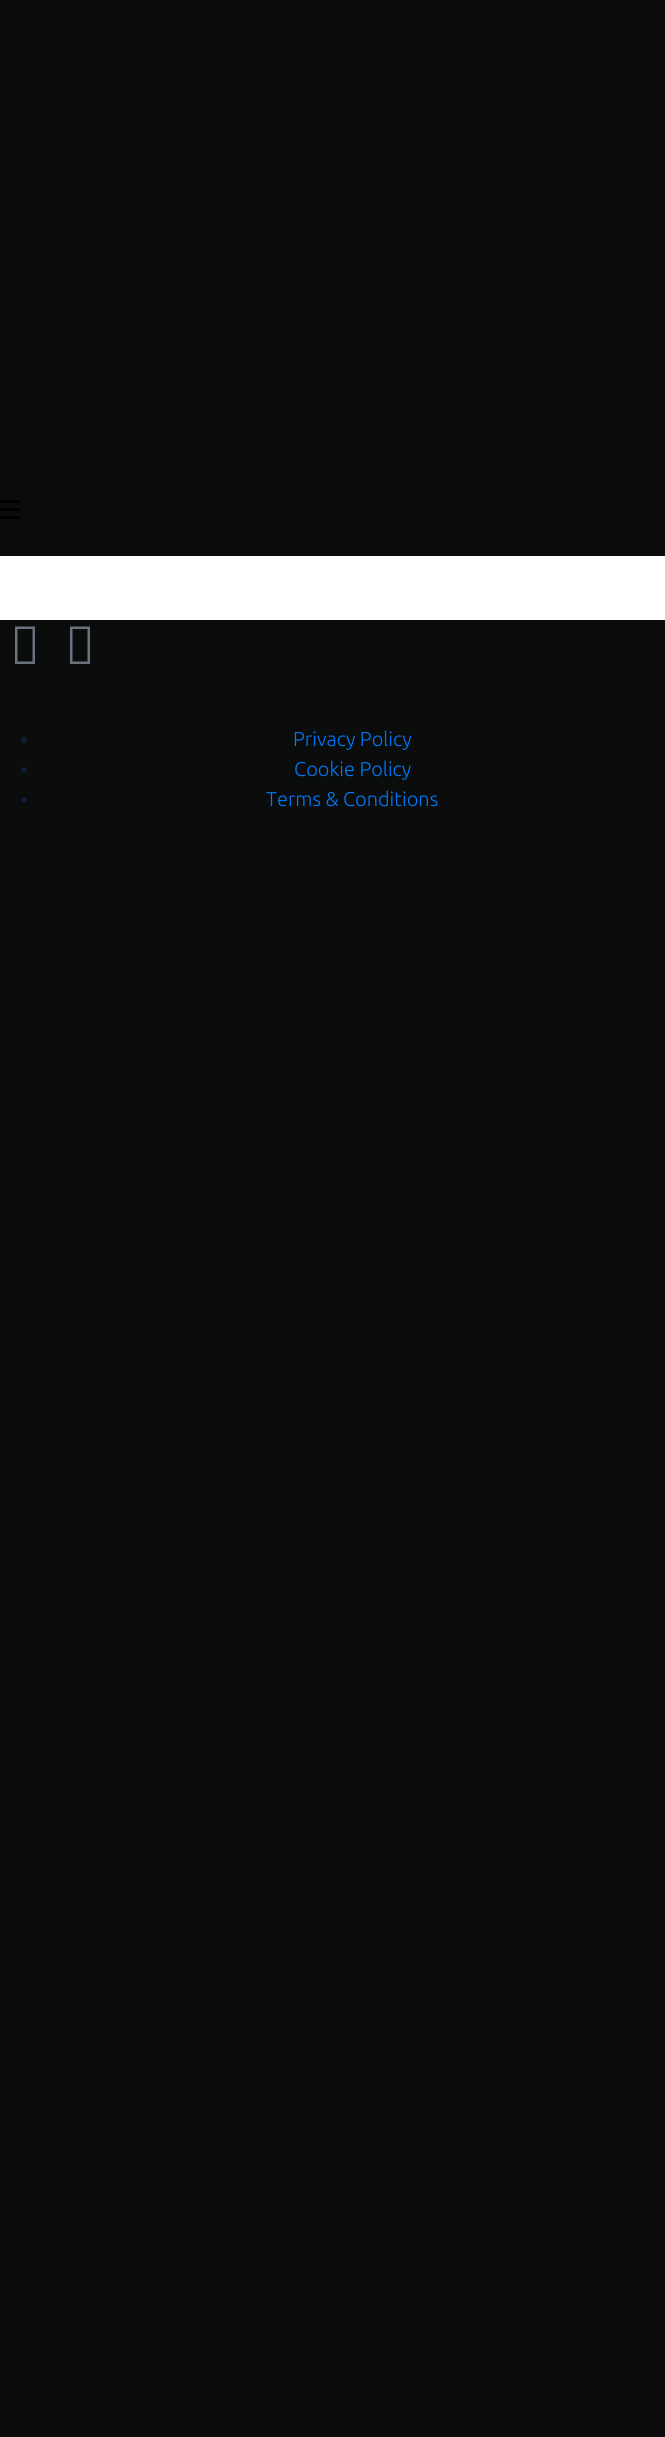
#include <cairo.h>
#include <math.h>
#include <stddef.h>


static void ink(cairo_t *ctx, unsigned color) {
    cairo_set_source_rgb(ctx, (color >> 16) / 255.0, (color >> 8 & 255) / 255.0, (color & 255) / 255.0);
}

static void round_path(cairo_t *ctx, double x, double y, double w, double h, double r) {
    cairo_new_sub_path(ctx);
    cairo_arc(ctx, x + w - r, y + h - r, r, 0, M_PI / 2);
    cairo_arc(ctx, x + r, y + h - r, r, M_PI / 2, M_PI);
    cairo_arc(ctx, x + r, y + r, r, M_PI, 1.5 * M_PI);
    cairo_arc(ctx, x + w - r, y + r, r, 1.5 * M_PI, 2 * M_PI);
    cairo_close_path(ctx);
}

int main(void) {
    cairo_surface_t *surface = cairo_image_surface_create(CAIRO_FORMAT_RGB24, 665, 2437);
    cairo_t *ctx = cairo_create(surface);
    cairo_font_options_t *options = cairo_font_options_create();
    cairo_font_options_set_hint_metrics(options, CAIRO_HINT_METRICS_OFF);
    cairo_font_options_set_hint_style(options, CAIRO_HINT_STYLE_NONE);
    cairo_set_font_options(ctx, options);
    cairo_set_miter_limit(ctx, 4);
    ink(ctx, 0x0B0D0C);
    cairo_paint(ctx);
    ink(ctx, 0x000000);
    round_path(ctx, 0, 508, 20, 3, 1.5);
    cairo_fill(ctx);
    round_path(ctx, 0, 500, 20, 3, 1.5);
    cairo_fill(ctx);
    round_path(ctx, 0, 516, 20, 3, 1.5);
    cairo_fill(ctx);
    ink(ctx, 0xFFFFFF);
    cairo_rectangle(ctx, 0, 556, 665, 64);
    cairo_fill(ctx);
    ink(ctx, 0x69727D);
    cairo_new_path(ctx);
    cairo_move_to(ctx, 15, 664);
    cairo_line_to(ctx, 15, 626.5);
    cairo_line_to(ctx, 35, 626.5);
    cairo_line_to(ctx, 35, 664);
    cairo_close_path(ctx);
    cairo_move_to(ctx, 17.5, 661.5);
    cairo_line_to(ctx, 32.5, 661.5);
    cairo_line_to(ctx, 32.5, 629);
    cairo_line_to(ctx, 17.5, 629);
    cairo_close_path(ctx);
    cairo_fill(ctx);
    cairo_new_path(ctx);
    cairo_move_to(ctx, 70, 664);
    cairo_line_to(ctx, 70, 626.5);
    cairo_line_to(ctx, 90, 626.5);
    cairo_line_to(ctx, 90, 664);
    cairo_close_path(ctx);
    cairo_move_to(ctx, 72.5, 661.5);
    cairo_line_to(ctx, 87.5, 661.5);
    cairo_line_to(ctx, 87.5, 629);
    cairo_line_to(ctx, 72.5, 629);
    cairo_close_path(ctx);
    cairo_fill(ctx);
    ink(ctx, 0x101E34);
    cairo_arc(ctx, 24, 740, 3, 0, 2 * M_PI);
    cairo_fill(ctx);
    cairo_select_font_face(ctx, "Ubuntu Light", CAIRO_FONT_SLANT_NORMAL, CAIRO_FONT_WEIGHT_NORMAL);
    cairo_set_font_size(ctx, 20);
    ink(ctx, 0x007BFF);
    cairo_move_to(ctx, 293, 746);
    cairo_show_text(ctx, "Privacy Policy");
    ink(ctx, 0x101E34);
    cairo_new_path(ctx);
    cairo_arc(ctx, 24, 770, 3, 0, 2 * M_PI);
    cairo_fill(ctx);
    ink(ctx, 0x007BFF);
    cairo_move_to(ctx, 294, 776);
    cairo_show_text(ctx, "Cookie Policy");
    ink(ctx, 0x101E34);
    cairo_new_path(ctx);
    cairo_arc(ctx, 24, 800, 3, 0, 2 * M_PI);
    cairo_fill(ctx);
    ink(ctx, 0x007BFF);
    cairo_move_to(ctx, 266, 806);
    cairo_show_text(ctx, "Terms & Conditions");
    cairo_surface_write_to_png(surface, "image.png");
    cairo_font_options_destroy(options);
    cairo_destroy(ctx);
    cairo_surface_destroy(surface);
    return 0;
}
